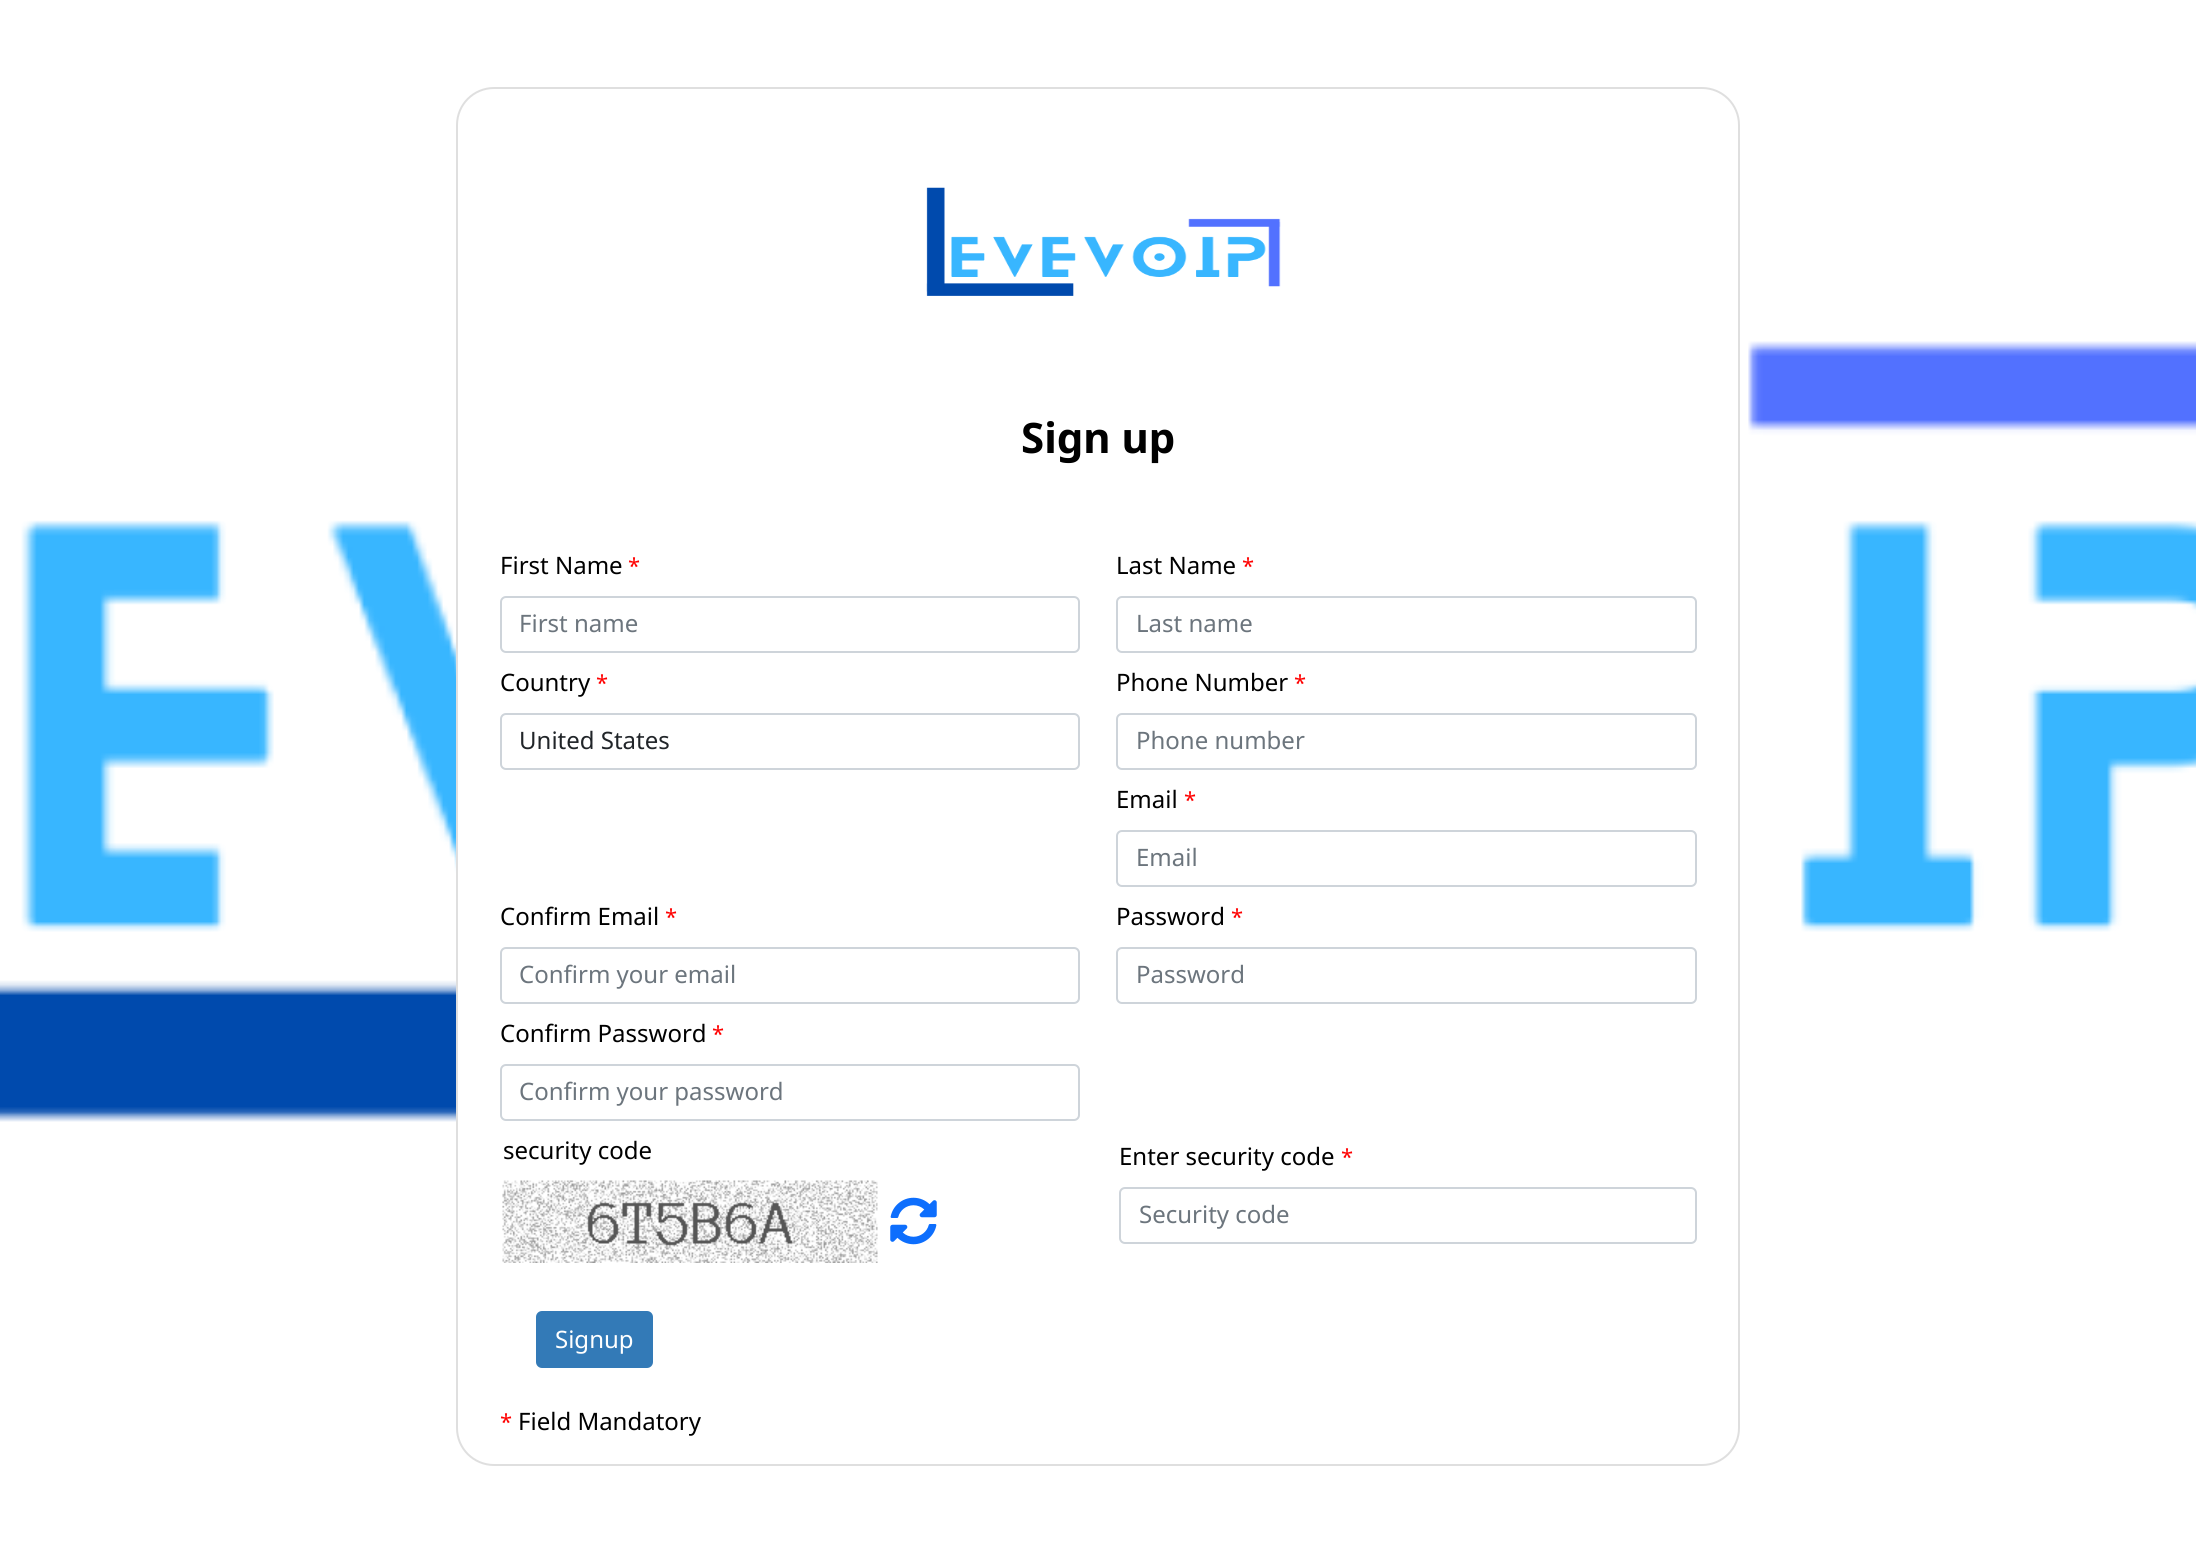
#include <cairo.h>
#include <math.h>
#include <stddef.h>


static void ink(cairo_t *ctx, unsigned color) {
    cairo_set_source_rgb(ctx, (color >> 16) / 255.0, (color >> 8 & 255) / 255.0, (color & 255) / 255.0);
}

static void round_path(cairo_t *ctx, double x, double y, double w, double h, double r) {
    cairo_new_sub_path(ctx);
    cairo_arc(ctx, x + w - r, y + h - r, r, 0, M_PI / 2);
    cairo_arc(ctx, x + r, y + h - r, r, M_PI / 2, M_PI);
    cairo_arc(ctx, x + r, y + r, r, M_PI, 1.5 * M_PI);
    cairo_arc(ctx, x + w - r, y + r, r, 1.5 * M_PI, 2 * M_PI);
    cairo_close_path(ctx);
}

static void paste(cairo_t *ctx, const char *path, double x, double y, double w, double h) {
    cairo_surface_t *image = cairo_image_surface_create_from_png(path);
    cairo_save(ctx);
    cairo_set_source_surface(ctx, image, x, y);
    cairo_rectangle(ctx, x, y, w, h);
    cairo_fill(ctx);
    cairo_restore(ctx);
    cairo_surface_destroy(image);
}

int main(void) {
    cairo_surface_t *surface = cairo_image_surface_create(CAIRO_FORMAT_RGB24, 2196, 1563);
    cairo_t *ctx = cairo_create(surface);
    cairo_font_options_t *options = cairo_font_options_create();
    cairo_font_options_set_hint_metrics(options, CAIRO_HINT_METRICS_OFF);
    cairo_font_options_set_hint_style(options, CAIRO_HINT_STYLE_NONE);
    cairo_set_font_options(ctx, options);
    cairo_set_miter_limit(ctx, 4);
    ink(ctx, 0xFFFFFF);
    cairo_paint(ctx);
    paste(ctx, "media/1.png", 0, 341, 2196, 781);
    ink(ctx, 0xFFFFFF);
    round_path(ctx, 457, 88, 1282, 1377, 37);
    cairo_fill_preserve(ctx);
    ink(ctx, 0xDFDFDF);
    cairo_stroke(ctx);
    paste(ctx, "media/2.png", 926, 187, 355, 109);
    cairo_select_font_face(ctx, "Noto Sans", CAIRO_FONT_SLANT_NORMAL, CAIRO_FONT_WEIGHT_BOLD);
    cairo_set_font_size(ctx, 42);
    ink(ctx, 0x000000);
    cairo_move_to(ctx, 1021, 453);
    cairo_show_text(ctx, "Sign up");
    cairo_select_font_face(ctx, "Noto Sans", CAIRO_FONT_SLANT_NORMAL, CAIRO_FONT_WEIGHT_NORMAL);
    cairo_set_font_size(ctx, 24);
    cairo_move_to(ctx, 500, 574);
    cairo_show_text(ctx, "First Name");
    cairo_set_font_size(ctx, 22);
    ink(ctx, 0xFF0000);
    cairo_move_to(ctx, 628, 574);
    cairo_show_text(ctx, "*");
    round_path(ctx, 501, 597, 578, 55, 5);
    ink(ctx, 0xCED4DA);
    cairo_stroke(ctx);
    cairo_set_font_size(ctx, 24);
    ink(ctx, 0x6C757D);
    cairo_move_to(ctx, 519, 632);
    cairo_show_text(ctx, "First name");
    ink(ctx, 0x000000);
    cairo_move_to(ctx, 1116, 574);
    cairo_show_text(ctx, "Last Name");
    cairo_set_font_size(ctx, 22);
    ink(ctx, 0xFF0000);
    cairo_move_to(ctx, 1242, 574);
    cairo_show_text(ctx, "*");
    round_path(ctx, 1117, 597, 579, 55, 5);
    ink(ctx, 0xCED4DA);
    cairo_stroke(ctx);
    cairo_set_font_size(ctx, 24);
    ink(ctx, 0x6C757D);
    cairo_move_to(ctx, 1136, 632);
    cairo_show_text(ctx, "Last name");
    ink(ctx, 0x000000);
    cairo_move_to(ctx, 500, 691);
    cairo_show_text(ctx, "Country");
    cairo_set_font_size(ctx, 22);
    ink(ctx, 0xFF0000);
    cairo_move_to(ctx, 596, 691);
    cairo_show_text(ctx, "*");
    round_path(ctx, 501, 714, 578, 55, 5);
    ink(ctx, 0xCED4DA);
    cairo_stroke(ctx);
    cairo_set_font_size(ctx, 24);
    ink(ctx, 0x212529);
    cairo_move_to(ctx, 519, 749);
    cairo_show_text(ctx, "United States");
    ink(ctx, 0x000000);
    cairo_move_to(ctx, 1116, 691);
    cairo_show_text(ctx, "Phone Number");
    cairo_set_font_size(ctx, 22);
    ink(ctx, 0xFF0000);
    cairo_move_to(ctx, 1294, 691);
    cairo_show_text(ctx, "*");
    round_path(ctx, 1117, 714, 579, 55, 5);
    ink(ctx, 0xCED4DA);
    cairo_stroke(ctx);
    cairo_set_font_size(ctx, 24);
    ink(ctx, 0x6C757D);
    cairo_move_to(ctx, 1136, 749);
    cairo_show_text(ctx, "Phone number");
    ink(ctx, 0x000000);
    cairo_move_to(ctx, 1116, 808);
    cairo_show_text(ctx, "Email");
    cairo_set_font_size(ctx, 22);
    ink(ctx, 0xFF0000);
    cairo_move_to(ctx, 1184, 808);
    cairo_show_text(ctx, "*");
    round_path(ctx, 1117, 831, 579, 55, 5);
    ink(ctx, 0xCED4DA);
    cairo_stroke(ctx);
    cairo_set_font_size(ctx, 24);
    ink(ctx, 0x6C757D);
    cairo_move_to(ctx, 1136, 866);
    cairo_show_text(ctx, "Email");
    ink(ctx, 0x000000);
    cairo_move_to(ctx, 500, 925);
    cairo_show_text(ctx, "Confirm Email");
    cairo_set_font_size(ctx, 22);
    ink(ctx, 0xFF0000);
    cairo_move_to(ctx, 665, 925);
    cairo_show_text(ctx, "*");
    round_path(ctx, 501, 948, 578, 55, 5);
    ink(ctx, 0xCED4DA);
    cairo_stroke(ctx);
    cairo_set_font_size(ctx, 24);
    ink(ctx, 0x6C757D);
    cairo_move_to(ctx, 519, 983);
    cairo_show_text(ctx, "Confirm your email");
    ink(ctx, 0x000000);
    cairo_move_to(ctx, 1116, 925);
    cairo_show_text(ctx, "Password");
    cairo_set_font_size(ctx, 22);
    ink(ctx, 0xFF0000);
    cairo_move_to(ctx, 1231, 925);
    cairo_show_text(ctx, "*");
    round_path(ctx, 1117, 948, 579, 55, 5);
    ink(ctx, 0xCED4DA);
    cairo_stroke(ctx);
    cairo_set_font_size(ctx, 24);
    ink(ctx, 0x6C757D);
    cairo_move_to(ctx, 1136, 983);
    cairo_show_text(ctx, "Password");
    ink(ctx, 0x000000);
    cairo_move_to(ctx, 500, 1042);
    cairo_show_text(ctx, "Confirm Password");
    cairo_set_font_size(ctx, 22);
    ink(ctx, 0xFF0000);
    cairo_move_to(ctx, 712, 1042);
    cairo_show_text(ctx, "*");
    round_path(ctx, 501, 1065, 578, 55, 5);
    ink(ctx, 0xCED4DA);
    cairo_stroke(ctx);
    cairo_set_font_size(ctx, 24);
    ink(ctx, 0x6C757D);
    cairo_move_to(ctx, 519, 1100);
    cairo_show_text(ctx, "Confirm your password");
    ink(ctx, 0x000000);
    cairo_move_to(ctx, 503, 1159);
    cairo_show_text(ctx, "security code");
    paste(ctx, "media/3.png", 502, 1180, 376, 83);
    paste(ctx, "media/4.png", 890, 1197, 47, 48);
    cairo_move_to(ctx, 1119, 1165);
    cairo_show_text(ctx, "Enter security code");
    cairo_set_font_size(ctx, 22);
    ink(ctx, 0xFF0000);
    cairo_move_to(ctx, 1341, 1165);
    cairo_show_text(ctx, "*");
    round_path(ctx, 1120, 1188, 576, 55, 5);
    ink(ctx, 0xCED4DA);
    cairo_stroke(ctx);
    cairo_set_font_size(ctx, 24);
    ink(ctx, 0x6C757D);
    cairo_move_to(ctx, 1139, 1223);
    cairo_show_text(ctx, "Security code");
    ink(ctx, 0x337AB7);
    round_path(ctx, 537, 1312, 115, 55, 5);
    cairo_fill_preserve(ctx);
    cairo_stroke(ctx);
    ink(ctx, 0xFFFFFF);
    cairo_move_to(ctx, 555, 1348);
    cairo_show_text(ctx, "Signup");
    cairo_set_font_size(ctx, 22);
    ink(ctx, 0xFF0000);
    cairo_move_to(ctx, 500, 1430);
    cairo_show_text(ctx, "*");
    cairo_set_font_size(ctx, 24);
    ink(ctx, 0x000000);
    cairo_move_to(ctx, 518, 1430);
    cairo_show_text(ctx, "Field Mandatory");
    cairo_surface_write_to_png(surface, "image.png");
    cairo_font_options_destroy(options);
    cairo_destroy(ctx);
    cairo_surface_destroy(surface);
    return 0;
}
